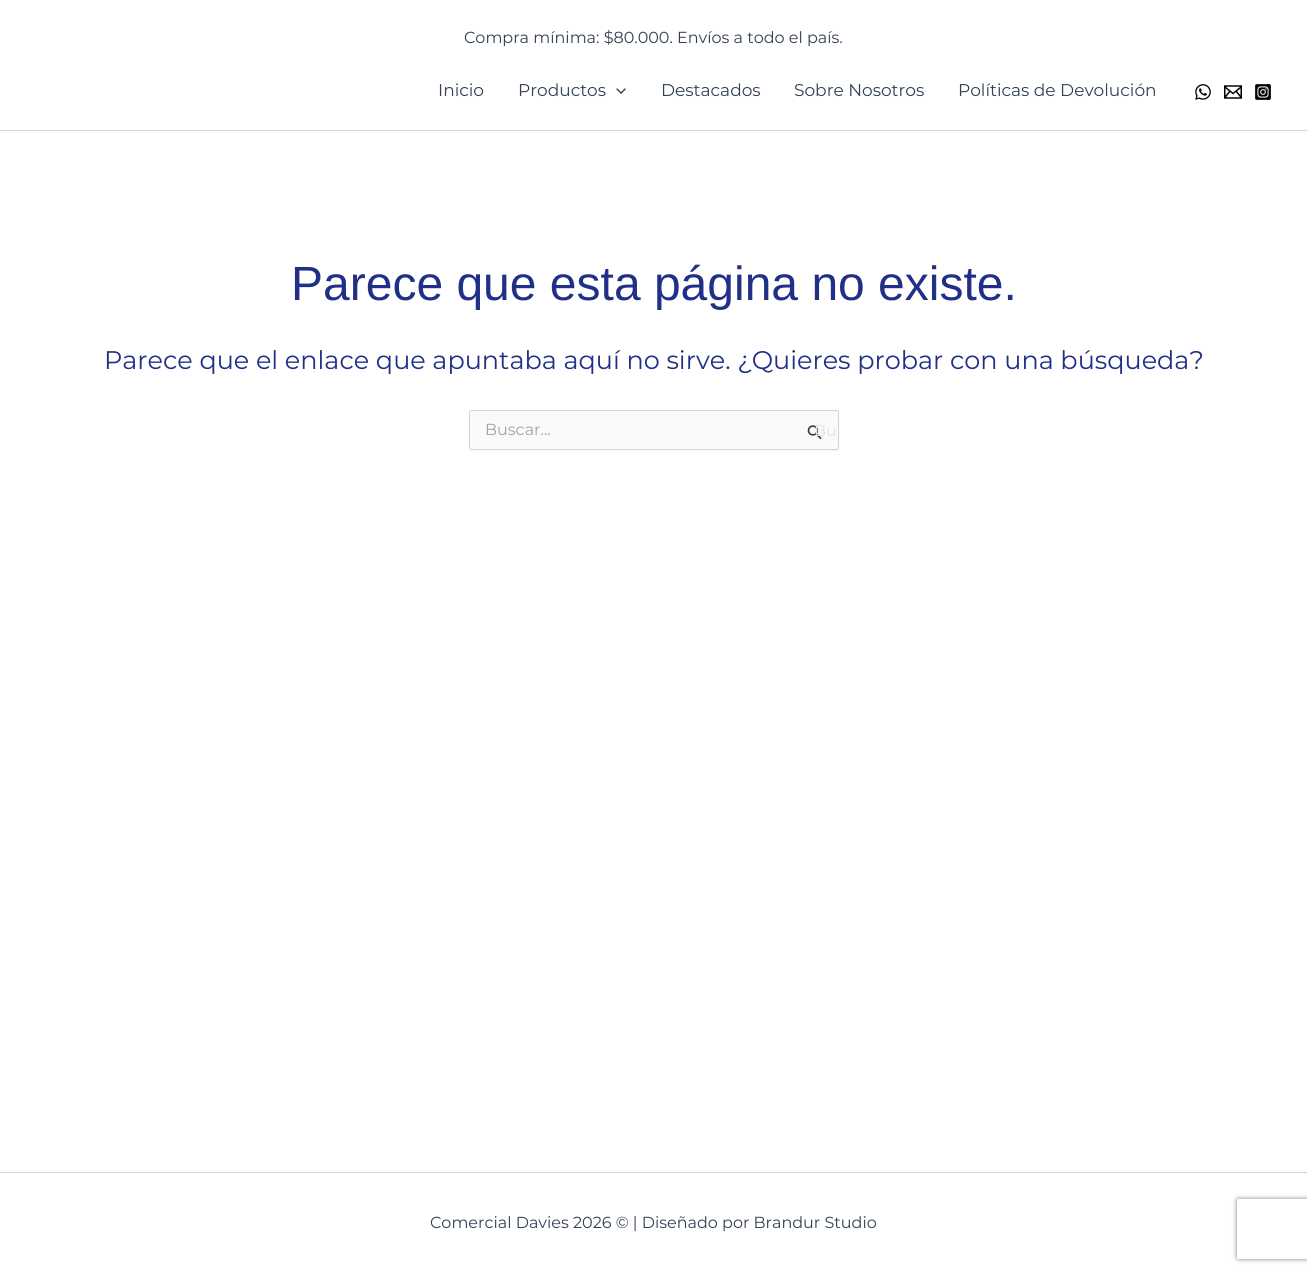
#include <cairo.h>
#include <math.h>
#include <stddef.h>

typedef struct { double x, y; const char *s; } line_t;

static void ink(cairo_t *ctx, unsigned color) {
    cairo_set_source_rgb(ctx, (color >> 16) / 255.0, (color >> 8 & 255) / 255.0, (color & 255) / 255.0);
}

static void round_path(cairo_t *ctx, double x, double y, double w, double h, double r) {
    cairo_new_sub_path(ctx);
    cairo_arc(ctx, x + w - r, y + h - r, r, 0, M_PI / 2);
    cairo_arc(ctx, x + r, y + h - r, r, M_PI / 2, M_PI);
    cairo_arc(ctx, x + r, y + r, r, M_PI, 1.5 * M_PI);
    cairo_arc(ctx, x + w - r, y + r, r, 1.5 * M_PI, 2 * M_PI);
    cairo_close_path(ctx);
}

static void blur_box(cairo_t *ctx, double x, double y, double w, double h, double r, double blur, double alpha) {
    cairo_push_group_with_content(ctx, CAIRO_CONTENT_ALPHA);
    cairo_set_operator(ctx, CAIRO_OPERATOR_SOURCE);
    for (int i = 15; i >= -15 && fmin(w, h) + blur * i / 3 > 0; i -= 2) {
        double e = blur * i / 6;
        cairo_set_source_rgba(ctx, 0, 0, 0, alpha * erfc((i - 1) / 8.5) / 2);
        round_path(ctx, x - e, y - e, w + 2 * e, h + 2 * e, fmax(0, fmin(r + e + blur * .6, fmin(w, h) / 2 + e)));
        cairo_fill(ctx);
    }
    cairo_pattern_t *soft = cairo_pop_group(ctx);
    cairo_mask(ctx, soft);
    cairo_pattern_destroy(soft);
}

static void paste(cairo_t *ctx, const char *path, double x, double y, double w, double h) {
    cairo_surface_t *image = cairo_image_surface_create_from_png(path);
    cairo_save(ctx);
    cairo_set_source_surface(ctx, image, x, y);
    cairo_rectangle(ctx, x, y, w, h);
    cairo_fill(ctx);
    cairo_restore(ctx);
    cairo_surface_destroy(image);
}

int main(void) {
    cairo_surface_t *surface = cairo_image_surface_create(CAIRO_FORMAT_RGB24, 1307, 1273);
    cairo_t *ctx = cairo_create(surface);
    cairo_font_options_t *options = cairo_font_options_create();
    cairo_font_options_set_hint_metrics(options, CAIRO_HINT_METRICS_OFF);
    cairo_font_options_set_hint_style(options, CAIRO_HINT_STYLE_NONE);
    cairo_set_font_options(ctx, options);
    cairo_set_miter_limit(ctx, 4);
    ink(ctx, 0xFFFFFF);
    cairo_paint(ctx);
    cairo_select_font_face(ctx, "Montserrat", CAIRO_FONT_SLANT_NORMAL, CAIRO_FONT_WEIGHT_NORMAL);
    cairo_set_font_size(ctx, 16);
    ink(ctx, 0x334155);
    cairo_move_to(ctx, 464, 43);
    cairo_show_text(ctx, "Compra mínima: $80.000. Envíos a todo el país.");
    ink(ctx, 0xD1D5DB);
    cairo_rectangle(ctx, 0, 130, 1307, 1);
    cairo_fill(ctx);
    cairo_set_font_size(ctx, 17);
    ink(ctx, 0x334155);
    cairo_move_to(ctx, 438, 96);
    cairo_show_text(ctx, "Inicio");
    cairo_move_to(ctx, 518, 96);
    cairo_show_text(ctx, "Productos");
    paste(ctx, "media/1.png", 616, 88, 10, 6);
    {
        static const line_t items[] = {
            {661, 96, "Destacados"},
            {794, 96, "Sobre Nosotros"},
            {958, 96, "Políticas de Devolución"},
        };
        for (size_t i = 0; i < sizeof items / sizeof *items; i++) {
            cairo_move_to(ctx, items[i].x, items[i].y);
            cairo_show_text(ctx, items[i].s);
        }
    }
    paste(ctx, "media/2.png", 1195, 84, 16, 16);
    paste(ctx, "media/3.png", 1224, 85, 18, 14);
    paste(ctx, "media/4.png", 1255, 84, 16, 16);
    cairo_select_font_face(ctx, "Liberation Sans", CAIRO_FONT_SLANT_NORMAL, CAIRO_FONT_WEIGHT_NORMAL);
    cairo_set_font_size(ctx, 48);
    ink(ctx, 0x202F87);
    cairo_move_to(ctx, 291, 300);
    cairo_show_text(ctx, "Parece que esta página no existe.");
    cairo_select_font_face(ctx, "Montserrat", CAIRO_FONT_SLANT_NORMAL, CAIRO_FONT_WEIGHT_NORMAL);
    cairo_set_font_size(ctx, 25.5);
    cairo_move_to(ctx, 104, 369);
    cairo_show_text(ctx, "Parece que el enlace que apuntaba aquí no sirve. ¿Quieres probar con una búsqueda?");
    ink(ctx, 0x000000);
    blur_box(ctx, 469, 411, 370, 40, 2, 1, 0.05);
    ink(ctx, 0xFAFAFA);
    round_path(ctx, 469.5, 410.5, 369, 39, 1.5);
    cairo_fill_preserve(ctx);
    ink(ctx, 0xD1D5DB);
    cairo_set_line_width(ctx, 1);
    cairo_stroke(ctx);
    cairo_set_font_size(ctx, 16);
    ink(ctx, 0x9CA3AF);
    cairo_move_to(ctx, 485, 435);
    cairo_show_text(ctx, "Buscar...");
    paste(ctx, "media/5.png", 807, 425, 15, 15);
    ink(ctx, 0xE2E2E2);
    cairo_move_to(ctx, 814, 436);
    cairo_show_text(ctx, "Bu");
    ink(ctx, 0xD1D5DB);
    cairo_rectangle(ctx, 0, 1172, 1307, 1);
    cairo_fill(ctx);
    ink(ctx, 0x334155);
    cairo_move_to(ctx, 430, 1228);
    cairo_show_text(ctx, "Comercial Davies 2026 © | Diseñado por Brandur Studio");
    cairo_save(ctx);
    cairo_set_fill_rule(ctx, CAIRO_FILL_RULE_EVEN_ODD);
    cairo_new_path(ctx);
    cairo_move_to(ctx, 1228, 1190);
    cairo_line_to(ctx, 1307, 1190);
    cairo_line_to(ctx, 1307, 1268);
    cairo_line_to(ctx, 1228, 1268);
    cairo_close_path(ctx);
    cairo_move_to(ctx, 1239, 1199);
    cairo_line_to(ctx, 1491, 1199);
    cairo_curve_to(ctx, 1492, 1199, 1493, 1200, 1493, 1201);
    cairo_line_to(ctx, 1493, 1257);
    cairo_curve_to(ctx, 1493, 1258, 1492, 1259, 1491, 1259);
    cairo_line_to(ctx, 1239, 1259);
    cairo_curve_to(ctx, 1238, 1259, 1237, 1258, 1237, 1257);
    cairo_line_to(ctx, 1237, 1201);
    cairo_curve_to(ctx, 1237, 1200, 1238, 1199, 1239, 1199);
    cairo_close_path(ctx);
    cairo_clip(ctx);
    ink(ctx, 0x808080);
    blur_box(ctx, 1237, 1199, 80, 60, 2, 2.5, 1);
    cairo_restore(ctx);
    cairo_surface_write_to_png(surface, "image.png");
    cairo_font_options_destroy(options);
    cairo_destroy(ctx);
    cairo_surface_destroy(surface);
    return 0;
}
